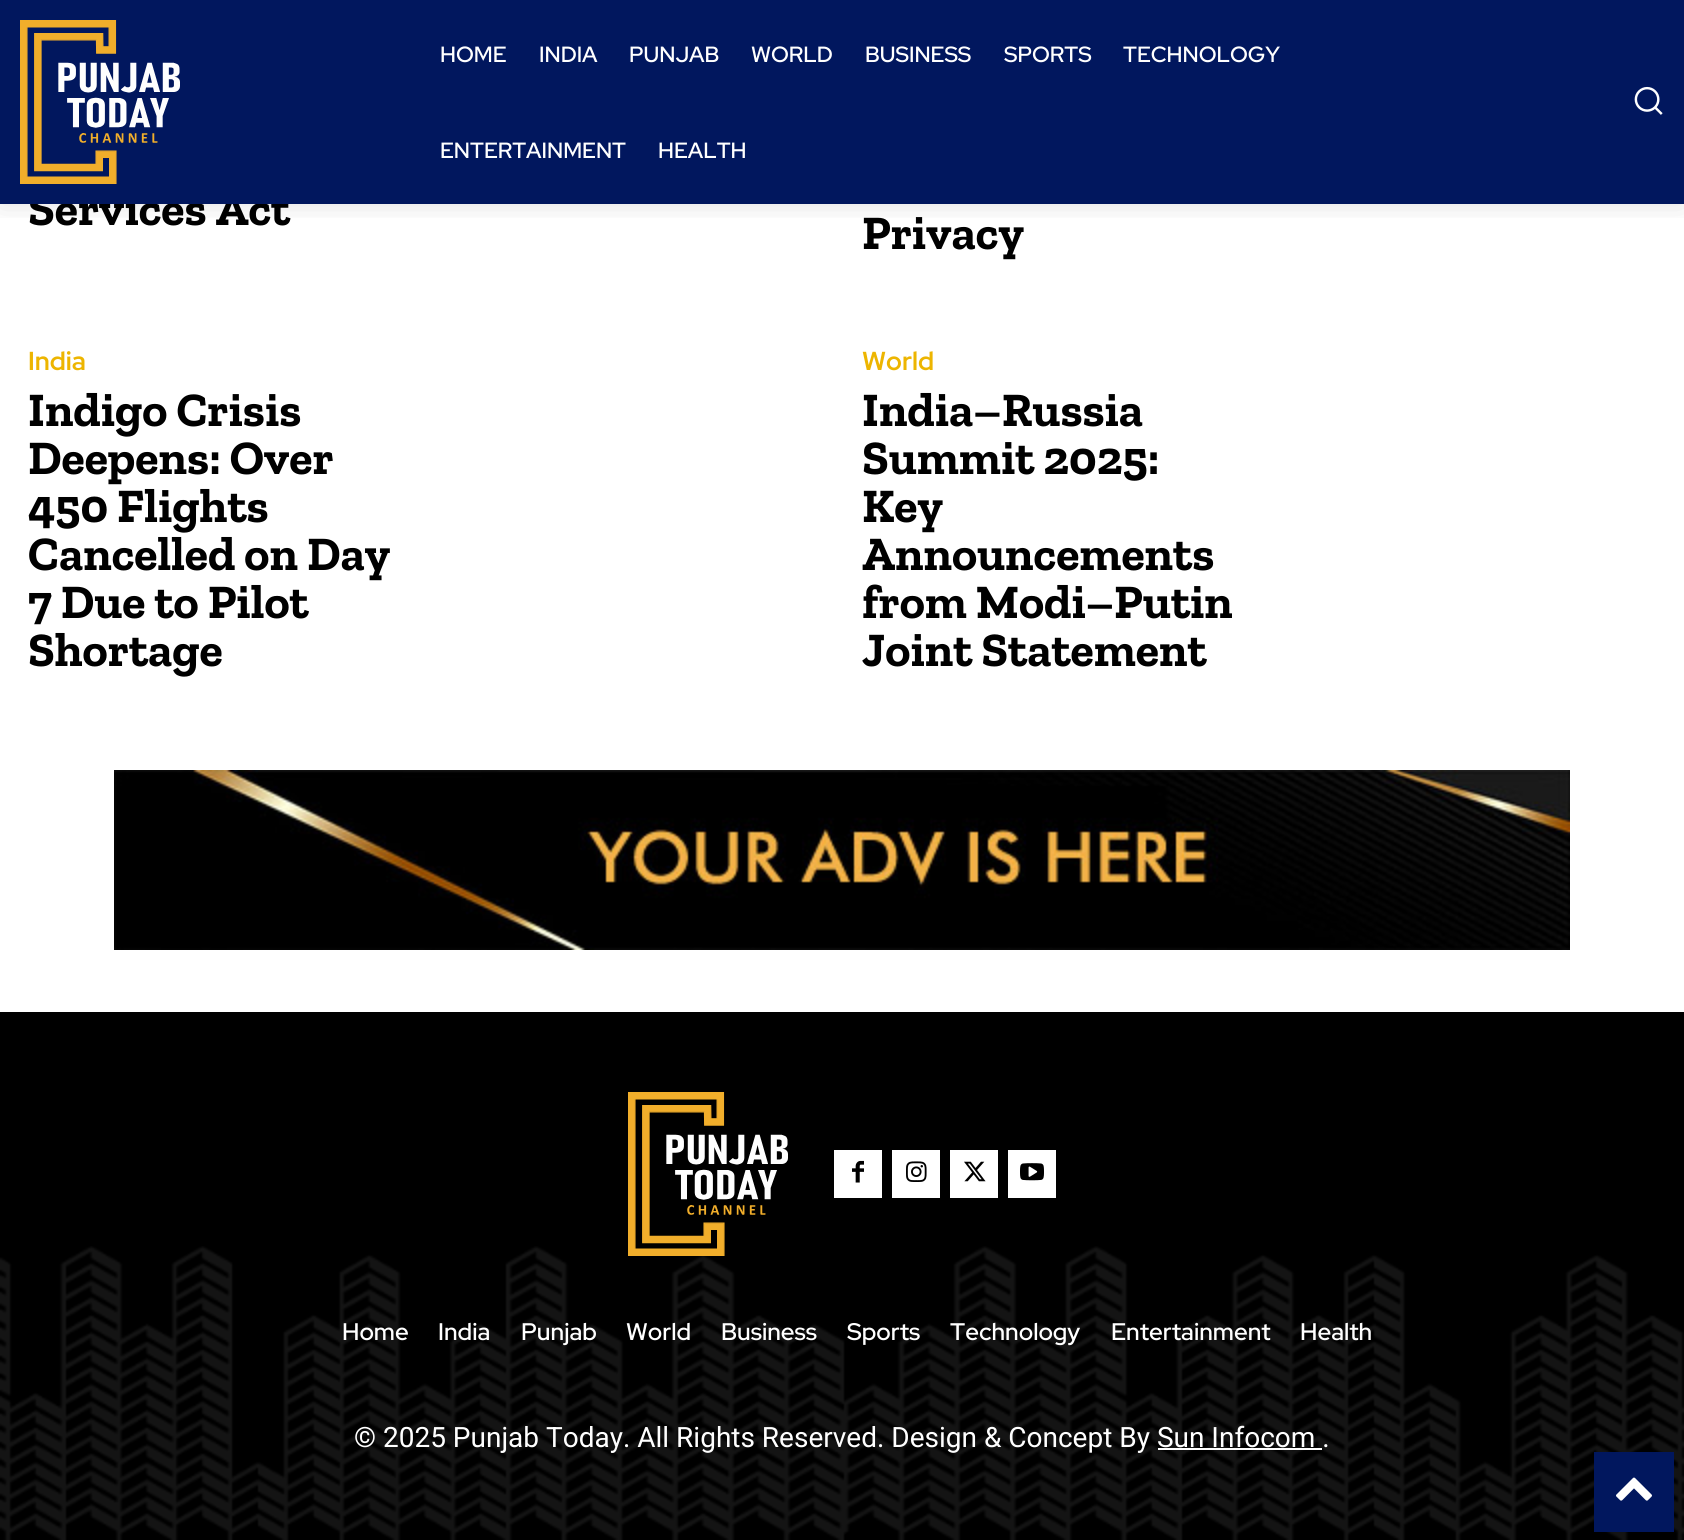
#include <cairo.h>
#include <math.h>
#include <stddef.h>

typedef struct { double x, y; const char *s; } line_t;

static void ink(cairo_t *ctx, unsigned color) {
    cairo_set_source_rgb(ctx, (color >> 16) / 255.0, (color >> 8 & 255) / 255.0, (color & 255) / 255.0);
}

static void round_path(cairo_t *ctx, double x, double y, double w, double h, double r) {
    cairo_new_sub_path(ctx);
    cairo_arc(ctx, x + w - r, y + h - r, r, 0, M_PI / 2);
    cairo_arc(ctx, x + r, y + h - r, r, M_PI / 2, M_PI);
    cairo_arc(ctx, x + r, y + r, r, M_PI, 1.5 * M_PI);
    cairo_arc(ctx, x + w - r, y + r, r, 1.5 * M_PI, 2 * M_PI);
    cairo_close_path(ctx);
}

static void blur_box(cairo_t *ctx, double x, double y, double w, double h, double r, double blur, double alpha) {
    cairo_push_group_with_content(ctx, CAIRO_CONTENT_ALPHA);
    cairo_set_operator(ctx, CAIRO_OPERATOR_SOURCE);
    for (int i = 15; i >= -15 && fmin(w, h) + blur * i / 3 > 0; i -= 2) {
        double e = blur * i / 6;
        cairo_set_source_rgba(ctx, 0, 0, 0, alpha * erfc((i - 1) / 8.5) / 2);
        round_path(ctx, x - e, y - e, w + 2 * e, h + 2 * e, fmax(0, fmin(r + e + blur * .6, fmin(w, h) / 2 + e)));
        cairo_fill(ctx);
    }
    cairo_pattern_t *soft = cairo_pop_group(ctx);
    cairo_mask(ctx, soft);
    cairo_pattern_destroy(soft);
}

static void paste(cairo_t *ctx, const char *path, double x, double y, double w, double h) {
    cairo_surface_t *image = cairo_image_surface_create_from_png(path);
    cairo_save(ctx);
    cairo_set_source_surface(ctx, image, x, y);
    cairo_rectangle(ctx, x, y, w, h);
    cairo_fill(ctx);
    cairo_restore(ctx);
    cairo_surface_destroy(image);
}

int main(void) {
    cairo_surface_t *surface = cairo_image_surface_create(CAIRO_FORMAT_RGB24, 1684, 1540);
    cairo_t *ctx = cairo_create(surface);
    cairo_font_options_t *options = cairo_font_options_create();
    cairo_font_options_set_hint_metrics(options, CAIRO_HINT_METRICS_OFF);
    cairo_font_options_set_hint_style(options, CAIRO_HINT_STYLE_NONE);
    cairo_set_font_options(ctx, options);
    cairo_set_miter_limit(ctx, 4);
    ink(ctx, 0xFFFFFF);
    cairo_paint(ctx);
    cairo_select_font_face(ctx, "Zilla Slab", CAIRO_FONT_SLANT_NORMAL, CAIRO_FONT_WEIGHT_BOLD);
    cairo_set_font_size(ctx, 48);
    ink(ctx, 0x000000);
    cairo_move_to(ctx, 28, 225);
    cairo_show_text(ctx, "Services Act");
    ink(ctx, 0x01175E);
    cairo_rectangle(ctx, 0, 0, 1684, 204);
    cairo_fill(ctx);
    paste(ctx, "media/1.png", 20, 20, 160, 164);
    cairo_save(ctx);
    cairo_rectangle(ctx, 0, 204, 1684, 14);
    cairo_clip(ctx);
    ink(ctx, 0x000000);
    blur_box(ctx, 0, 0, 1684, 204, 0, 15, 0.12);
    cairo_restore(ctx);
    cairo_select_font_face(ctx, "Red Hat Display SemiBold", CAIRO_FONT_SLANT_NORMAL, CAIRO_FONT_WEIGHT_NORMAL);
    cairo_set_font_size(ctx, 22);
    ink(ctx, 0xFFFFFF);
    {
        static const line_t items[] = {
            {440, 62, "HOME"},
            {539, 62, "INDIA"},
            {629, 62, "PUNJAB"},
            {751, 62, "WORLD"},
            {865, 62, "BUSINESS"},
            {1004, 62, "SPORTS"},
            {1123, 62, "TECHNOLOGY"},
            {440, 158, "ENTERTAINMENT"},
            {658, 158, "HEALTH"},
        };
        for (size_t i = 0; i < sizeof items / sizeof *items; i++) {
            cairo_move_to(ctx, items[i].x, items[i].y);
            cairo_show_text(ctx, items[i].s);
        }
    }
    paste(ctx, "media/2.png", 1634, 86, 29, 29);
    cairo_select_font_face(ctx, "Zilla Slab", CAIRO_FONT_SLANT_NORMAL, CAIRO_FONT_WEIGHT_BOLD);
    cairo_set_font_size(ctx, 48);
    ink(ctx, 0x000000);
    cairo_move_to(ctx, 862, 249);
    cairo_show_text(ctx, "Privacy");
    cairo_select_font_face(ctx, "Red Hat Display", CAIRO_FONT_SLANT_NORMAL, CAIRO_FONT_WEIGHT_BOLD);
    cairo_set_font_size(ctx, 26);
    ink(ctx, 0xEDB500);
    cairo_move_to(ctx, 28, 370);
    cairo_show_text(ctx, "India");
    cairo_select_font_face(ctx, "Zilla Slab", CAIRO_FONT_SLANT_NORMAL, CAIRO_FONT_WEIGHT_BOLD);
    cairo_set_font_size(ctx, 48);
    ink(ctx, 0x000000);
    {
        static const line_t items[] = {
            {28, 426, "Indigo Crisis"},
            {28, 474, "Deepens: Over"},
            {28, 522, "450 Flights"},
            {28, 570, "Cancelled on Day"},
            {28, 618, "7 Due to Pilot"},
            {28, 666, "Shortage"},
        };
        for (size_t i = 0; i < sizeof items / sizeof *items; i++) {
            cairo_move_to(ctx, items[i].x, items[i].y);
            cairo_show_text(ctx, items[i].s);
        }
    }
    cairo_select_font_face(ctx, "Red Hat Display", CAIRO_FONT_SLANT_NORMAL, CAIRO_FONT_WEIGHT_BOLD);
    cairo_set_font_size(ctx, 26);
    ink(ctx, 0xEDB500);
    cairo_move_to(ctx, 862, 370);
    cairo_show_text(ctx, "World");
    cairo_select_font_face(ctx, "Zilla Slab", CAIRO_FONT_SLANT_NORMAL, CAIRO_FONT_WEIGHT_BOLD);
    cairo_set_font_size(ctx, 48);
    ink(ctx, 0x000000);
    {
        static const line_t items[] = {
            {862, 426, "India–Russia"},
            {862, 474, "Summit 2025:"},
            {862, 522, "Key"},
            {862, 570, "Announcements"},
            {862, 618, "from Modi–Putin"},
            {862, 666, "Joint Statement"},
        };
        for (size_t i = 0; i < sizeof items / sizeof *items; i++) {
            cairo_move_to(ctx, items[i].x, items[i].y);
            cairo_show_text(ctx, items[i].s);
        }
    }
    paste(ctx, "media/3.png", 114, 770, 1456, 180);
    cairo_rectangle(ctx, 0, 1012, 1684, 528);
    cairo_fill(ctx);
    paste(ctx, "media/4.png", 0, 1246, 1684, 294);
    paste(ctx, "media/5.png", 628, 1092, 160, 164);
    ink(ctx, 0xFFFFFF);
    cairo_rectangle(ctx, 834, 1150, 48, 48);
    cairo_fill(ctx);
    paste(ctx, "media/6.png", 852, 1160, 12, 23);
    cairo_rectangle(ctx, 892, 1150, 48, 48);
    cairo_fill(ctx);
    paste(ctx, "media/7.png", 906, 1161, 21, 21);
    cairo_rectangle(ctx, 950, 1150, 48, 48);
    cairo_fill(ctx);
    paste(ctx, "media/8.png", 964, 1161, 22, 21);
    cairo_rectangle(ctx, 1008, 1150, 48, 48);
    cairo_fill(ctx);
    paste(ctx, "media/9.png", 1020, 1163, 24, 18);
    cairo_select_font_face(ctx, "Red Hat Display SemiBold", CAIRO_FONT_SLANT_NORMAL, CAIRO_FONT_WEIGHT_NORMAL);
    cairo_set_font_size(ctx, 24);
    {
        static const line_t items[] = {
            {342, 1340, "Home"},
            {438, 1340, "India"},
            {521, 1340, "Punjab"},
            {626, 1340, "World"},
            {721, 1340, "Business"},
            {847, 1340, "Sports"},
            {950, 1340, "Technology"},
            {1111, 1340, "Entertainment"},
            {1300, 1340, "Health"},
        };
        for (size_t i = 0; i < sizeof items / sizeof *items; i++) {
            cairo_move_to(ctx, items[i].x, items[i].y);
            cairo_show_text(ctx, items[i].s);
        }
    }
    cairo_select_font_face(ctx, "Roboto", CAIRO_FONT_SLANT_NORMAL, CAIRO_FONT_WEIGHT_NORMAL);
    cairo_set_font_size(ctx, 28);
    cairo_move_to(ctx, 354, 1447);
    cairo_show_text(ctx, "© 2025 Punjab Today. All Rights Reserved. Design & Concept By Sun Infocom .");
    cairo_rectangle(ctx, 1158, 1448, 164, 2);
    cairo_fill(ctx);
    ink(ctx, 0x01175E);
    cairo_rectangle(ctx, 1594, 1452, 80, 80);
    cairo_fill(ctx);
    paste(ctx, "media/10.png", 1616, 1477, 36, 24);
    cairo_surface_write_to_png(surface, "image.png");
    cairo_font_options_destroy(options);
    cairo_destroy(ctx);
    cairo_surface_destroy(surface);
    return 0;
}
